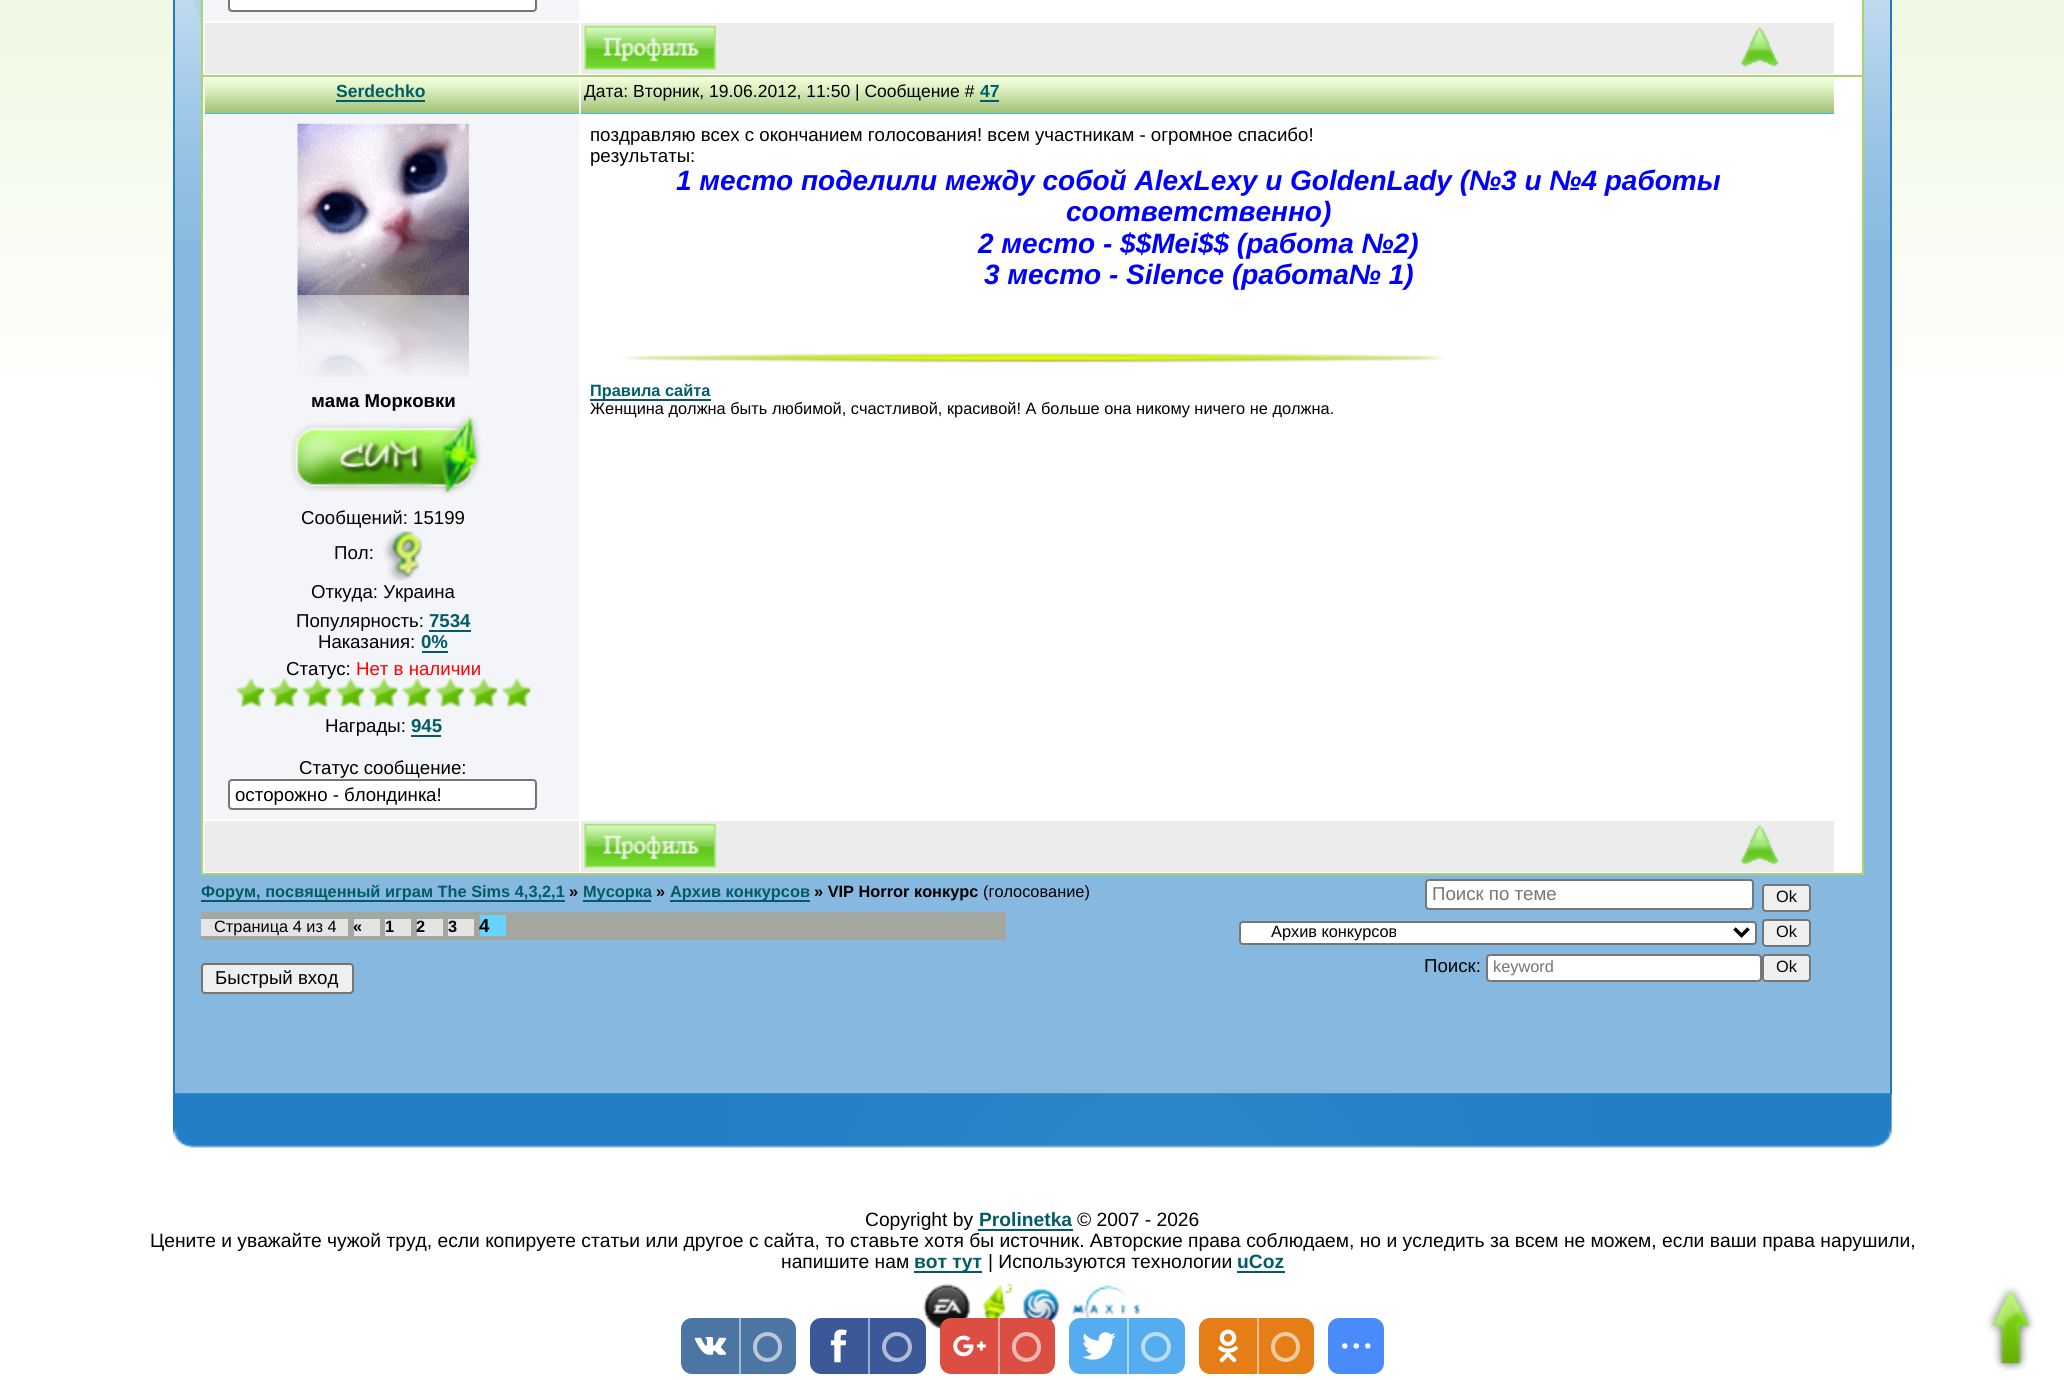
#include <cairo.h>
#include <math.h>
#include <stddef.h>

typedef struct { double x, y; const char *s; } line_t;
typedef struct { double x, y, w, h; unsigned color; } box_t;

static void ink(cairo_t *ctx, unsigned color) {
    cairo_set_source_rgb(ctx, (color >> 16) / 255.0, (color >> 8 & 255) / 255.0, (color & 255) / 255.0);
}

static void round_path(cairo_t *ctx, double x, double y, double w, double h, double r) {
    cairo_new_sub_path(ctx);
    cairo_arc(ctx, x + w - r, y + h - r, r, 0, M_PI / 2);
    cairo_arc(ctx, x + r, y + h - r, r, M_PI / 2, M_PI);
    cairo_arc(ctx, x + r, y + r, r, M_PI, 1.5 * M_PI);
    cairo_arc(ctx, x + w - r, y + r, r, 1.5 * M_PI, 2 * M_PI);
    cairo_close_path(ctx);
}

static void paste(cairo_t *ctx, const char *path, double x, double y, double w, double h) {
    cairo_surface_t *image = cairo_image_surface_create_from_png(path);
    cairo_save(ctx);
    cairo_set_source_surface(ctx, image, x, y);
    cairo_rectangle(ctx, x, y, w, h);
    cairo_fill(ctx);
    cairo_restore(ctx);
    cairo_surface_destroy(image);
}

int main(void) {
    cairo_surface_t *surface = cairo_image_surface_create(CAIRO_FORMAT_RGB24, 2064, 1380);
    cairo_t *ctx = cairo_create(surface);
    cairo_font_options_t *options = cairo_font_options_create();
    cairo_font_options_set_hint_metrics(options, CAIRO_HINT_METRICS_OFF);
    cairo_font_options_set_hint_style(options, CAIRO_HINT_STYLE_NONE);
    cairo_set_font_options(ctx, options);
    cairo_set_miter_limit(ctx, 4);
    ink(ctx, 0xFFFFFF);
    cairo_paint(ctx);
    paste(ctx, "media/1.png", 0, 0, 2064, 370);
    ink(ctx, 0x87B9E0);
    cairo_rectangle(ctx, 175, 239, 1715, 855);
    cairo_fill(ctx);
    paste(ctx, "media/2.png", 175, 0, 1715, 239);
    {
        static const box_t items[] = {
            {1890, 0, 2, 1094, 0x207AC2},
            {173, 0, 2, 1094, 0x207AC2},
            {201, 0, 1663, 875, 0xAAD46E},
            {203, 0, 1659, 75, 0xFFFFFF},
            {205, 0, 374, 21, 0xF4F5F8},
        };
        for (size_t i = 0; i < sizeof items / sizeof *items; i++) {
            ink(ctx, items[i].color);
            cairo_rectangle(ctx, items[i].x, items[i].y, items[i].w, items[i].h);
            cairo_fill(ctx);
        }
    }
    ink(ctx, 0xFFFFFF);
    round_path(ctx, 229, -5, 307, 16, 3);
    cairo_fill_preserve(ctx);
    ink(ctx, 0x767676);
    cairo_stroke(ctx);
    ink(ctx, 0xECECEC);
    cairo_rectangle(ctx, 205, 23, 374, 51);
    cairo_fill(ctx);
    cairo_rectangle(ctx, 581, 23, 1253, 51);
    cairo_fill(ctx);
    paste(ctx, "media/3.png", 584, 25, 132, 45);
    paste(ctx, "media/4.png", 1740, 27, 39, 40);
    ink(ctx, 0xFFFFFF);
    cairo_rectangle(ctx, 203, 77, 1659, 796);
    cairo_fill(ctx);
    ink(ctx, 0x00D3EC);
    cairo_rectangle(ctx, 205, 113, 374, 1);
    cairo_fill(ctx);
    paste(ctx, "media/5.png", 204, 78, 376, 36);
    cairo_select_font_face(ctx, "Liberation Sans", CAIRO_FONT_SLANT_NORMAL, CAIRO_FONT_WEIGHT_BOLD);
    cairo_set_font_size(ctx, 17.5);
    ink(ctx, 0x005D68);
    cairo_move_to(ctx, 336, 97);
    cairo_show_text(ctx, "Serdechko");
    cairo_rectangle(ctx, 336, 100, 89, 2);
    cairo_fill(ctx);
    ink(ctx, 0x00D3EC);
    cairo_rectangle(ctx, 581, 113, 1253, 1);
    cairo_fill(ctx);
    paste(ctx, "media/6.png", 581, 78, 1253, 36);
    cairo_select_font_face(ctx, "Liberation Sans", CAIRO_FONT_SLANT_NORMAL, CAIRO_FONT_WEIGHT_NORMAL);
    ink(ctx, 0x000000);
    cairo_move_to(ctx, 584, 97);
    cairo_show_text(ctx, "Дата: Вторник, 19.06.2012, 11:50 | Сообщение #");
    cairo_select_font_face(ctx, "Liberation Sans", CAIRO_FONT_SLANT_NORMAL, CAIRO_FONT_WEIGHT_BOLD);
    ink(ctx, 0x005D68);
    cairo_move_to(ctx, 980, 97);
    cairo_show_text(ctx, "47");
    cairo_rectangle(ctx, 980, 100, 19, 2);
    cairo_fill(ctx);
    cairo_select_font_face(ctx, "Liberation Sans", CAIRO_FONT_SLANT_NORMAL, CAIRO_FONT_WEIGHT_NORMAL);
    cairo_set_font_size(ctx, 18.65);
    ink(ctx, 0x000000);
    cairo_move_to(ctx, 590, 141);
    cairo_show_text(ctx, "поздравляю всех с окончанием голосования! всем участникам - огромное спасибо!");
    cairo_move_to(ctx, 590, 162);
    cairo_show_text(ctx, "результаты:");
    cairo_select_font_face(ctx, "Liberation Sans", CAIRO_FONT_SLANT_ITALIC, CAIRO_FONT_WEIGHT_BOLD);
    cairo_set_font_size(ctx, 28);
    ink(ctx, 0x0000FF);
    {
        static const line_t items[] = {
            {676, 190, "1 место поделили между собой AlexLexy и GoldenLady (№3 и №4 работы"},
            {1066, 221, "соответственно)"},
            {978, 253, "2 место - $$Mei$$ (работа №2)"},
            {984, 284, "3 место - Silence (работа№ 1)"},
        };
        for (size_t i = 0; i < sizeof items / sizeof *items; i++) {
            cairo_move_to(ctx, items[i].x, items[i].y);
            cairo_show_text(ctx, items[i].s);
        }
    }
    paste(ctx, "media/7.png", 622, 352, 824, 11);
    ink(ctx, 0x005D68);
    cairo_rectangle(ctx, 590, 399, 121, 2);
    cairo_fill(ctx);
    cairo_select_font_face(ctx, "Liberation Sans", CAIRO_FONT_SLANT_NORMAL, CAIRO_FONT_WEIGHT_BOLD);
    cairo_set_font_size(ctx, 16.35);
    cairo_move_to(ctx, 590, 396);
    cairo_show_text(ctx, "Правила сайта");
    cairo_select_font_face(ctx, "Liberation Sans", CAIRO_FONT_SLANT_NORMAL, CAIRO_FONT_WEIGHT_NORMAL);
    ink(ctx, 0x000000);
    cairo_move_to(ctx, 590, 414);
    cairo_show_text(ctx, "Женщина должна быть любимой, счастливой, красивой! А больше она никому ничего не должна.");
    ink(ctx, 0xF4F5F8);
    cairo_rectangle(ctx, 205, 115, 374, 704);
    cairo_fill(ctx);
    paste(ctx, "media/8.png", 297, 123, 172, 173);
    paste(ctx, "media/9.png", 297, 295, 172, 82);
    cairo_select_font_face(ctx, "Liberation Sans", CAIRO_FONT_SLANT_NORMAL, CAIRO_FONT_WEIGHT_BOLD);
    cairo_set_font_size(ctx, 18.65);
    ink(ctx, 0x000000);
    cairo_move_to(ctx, 311, 407);
    cairo_show_text(ctx, "мама Морковки");
    paste(ctx, "media/10.png", 290, 415, 192, 80);
    cairo_select_font_face(ctx, "Liberation Sans", CAIRO_FONT_SLANT_NORMAL, CAIRO_FONT_WEIGHT_NORMAL);
    cairo_move_to(ctx, 301, 524);
    cairo_show_text(ctx, "Сообщений: 15199");
    cairo_move_to(ctx, 334, 559);
    cairo_show_text(ctx, "Пол:");
    paste(ctx, "media/11.png", 383, 531, 40, 50);
    cairo_move_to(ctx, 311, 598);
    cairo_show_text(ctx, "Откуда: Украина");
    cairo_move_to(ctx, 296, 627);
    cairo_show_text(ctx, "Популярность:");
    cairo_select_font_face(ctx, "Liberation Sans", CAIRO_FONT_SLANT_NORMAL, CAIRO_FONT_WEIGHT_BOLD);
    ink(ctx, 0x005D68);
    cairo_move_to(ctx, 429, 627);
    cairo_show_text(ctx, "7534");
    cairo_rectangle(ctx, 429, 630, 42, 2);
    cairo_fill(ctx);
    cairo_select_font_face(ctx, "Liberation Sans", CAIRO_FONT_SLANT_NORMAL, CAIRO_FONT_WEIGHT_NORMAL);
    ink(ctx, 0x000000);
    cairo_move_to(ctx, 318, 648);
    cairo_show_text(ctx, "Наказания:");
    cairo_select_font_face(ctx, "Liberation Sans", CAIRO_FONT_SLANT_NORMAL, CAIRO_FONT_WEIGHT_BOLD);
    ink(ctx, 0x005D68);
    cairo_move_to(ctx, 421, 648);
    cairo_show_text(ctx, "0%");
    cairo_rectangle(ctx, 422, 651, 26, 2);
    cairo_fill(ctx);
    cairo_select_font_face(ctx, "Liberation Sans", CAIRO_FONT_SLANT_NORMAL, CAIRO_FONT_WEIGHT_NORMAL);
    ink(ctx, 0x000000);
    cairo_move_to(ctx, 286, 675);
    cairo_show_text(ctx, "Статус:");
    ink(ctx, 0xFF0000);
    cairo_move_to(ctx, 356, 675);
    cairo_show_text(ctx, "Нет в наличии");
    paste(ctx, "media/12.png", 236, 678, 29, 29);
    paste(ctx, "media/13.png", 269, 678, 30, 29);
    paste(ctx, "media/14.png", 302, 678, 30, 29);
    paste(ctx, "media/15.png", 335, 678, 30, 29);
    paste(ctx, "media/16.png", 369, 678, 29, 29);
    paste(ctx, "media/17.png", 402, 678, 30, 29);
    paste(ctx, "media/18.png", 435, 678, 30, 29);
    paste(ctx, "media/19.png", 468, 678, 30, 29);
    paste(ctx, "media/12.png", 502, 678, 29, 29);
    ink(ctx, 0x000000);
    cairo_move_to(ctx, 325, 732);
    cairo_show_text(ctx, "Награды:");
    cairo_select_font_face(ctx, "Liberation Sans", CAIRO_FONT_SLANT_NORMAL, CAIRO_FONT_WEIGHT_BOLD);
    ink(ctx, 0x005D68);
    cairo_move_to(ctx, 411, 732);
    cairo_show_text(ctx, "945");
    cairo_rectangle(ctx, 411, 735, 30, 2);
    cairo_fill(ctx);
    cairo_select_font_face(ctx, "Liberation Sans", CAIRO_FONT_SLANT_NORMAL, CAIRO_FONT_WEIGHT_NORMAL);
    ink(ctx, 0x000000);
    cairo_move_to(ctx, 299, 774);
    cairo_show_text(ctx, "Статус сообщение:");
    ink(ctx, 0xFFFFFF);
    round_path(ctx, 229, 780, 307, 29, 3);
    cairo_fill_preserve(ctx);
    ink(ctx, 0x767676);
    cairo_stroke(ctx);
    ink(ctx, 0x000000);
    cairo_move_to(ctx, 235, 801);
    cairo_show_text(ctx, "осторожно - блондинка!");
    ink(ctx, 0xECECEC);
    cairo_rectangle(ctx, 205, 821, 374, 51);
    cairo_fill(ctx);
    cairo_rectangle(ctx, 581, 821, 1253, 51);
    cairo_fill(ctx);
    paste(ctx, "media/20.png", 584, 823, 133, 45);
    paste(ctx, "media/21.png", 1740, 825, 40, 40);
    ink(ctx, 0x005D68);
    cairo_rectangle(ctx, 201, 900, 364, 2);
    cairo_fill(ctx);
    cairo_select_font_face(ctx, "Liberation Sans", CAIRO_FONT_SLANT_NORMAL, CAIRO_FONT_WEIGHT_BOLD);
    cairo_set_font_size(ctx, 16.35);
    cairo_move_to(ctx, 201, 897);
    cairo_show_text(ctx, "Форум, посвященный играм The Sims 4,3,2,1");
    ink(ctx, 0x000000);
    cairo_move_to(ctx, 569, 897);
    cairo_show_text(ctx, "»");
    ink(ctx, 0x005D68);
    cairo_rectangle(ctx, 583, 900, 68, 2);
    cairo_fill(ctx);
    cairo_move_to(ctx, 583, 897);
    cairo_show_text(ctx, "Мусорка");
    ink(ctx, 0x000000);
    cairo_move_to(ctx, 656, 897);
    cairo_show_text(ctx, "»");
    ink(ctx, 0x005D68);
    cairo_rectangle(ctx, 670, 900, 140, 2);
    cairo_fill(ctx);
    cairo_move_to(ctx, 670, 897);
    cairo_show_text(ctx, "Архив конкурсов");
    ink(ctx, 0x000000);
    cairo_move_to(ctx, 814, 897);
    cairo_show_text(ctx, "» VIP Horror конкурс");
    cairo_select_font_face(ctx, "Liberation Sans", CAIRO_FONT_SLANT_NORMAL, CAIRO_FONT_WEIGHT_NORMAL);
    cairo_move_to(ctx, 983, 897);
    cairo_show_text(ctx, "(голосование)");
    ink(ctx, 0xFFFFFF);
    round_path(ctx, 1426, 880, 327, 29, 3);
    cairo_fill_preserve(ctx);
    ink(ctx, 0x767676);
    cairo_stroke(ctx);
    cairo_set_font_size(ctx, 18.65);
    ink(ctx, 0x757575);
    cairo_move_to(ctx, 1432, 900);
    cairo_show_text(ctx, "Поиск по теме");
    ink(ctx, 0xEFEFEF);
    round_path(ctx, 1763, 885, 47, 26, 3);
    cairo_fill_preserve(ctx);
    ink(ctx, 0x767676);
    cairo_stroke(ctx);
    cairo_set_font_size(ctx, 16.35);
    ink(ctx, 0x000000);
    cairo_move_to(ctx, 1776, 902);
    cairo_show_text(ctx, "Ok");
    ink(ctx, 0xA4A79E);
    cairo_rectangle(ctx, 201, 912, 805, 28);
    cairo_fill(ctx);
    ink(ctx, 0xE4E4E4);
    cairo_rectangle(ctx, 201, 919, 147, 17);
    cairo_fill(ctx);
    ink(ctx, 0x000000);
    cairo_move_to(ctx, 214, 932);
    cairo_show_text(ctx, "Страница 4 из 4");
    ink(ctx, 0xE4E4E4);
    cairo_rectangle(ctx, 354, 919, 26, 17);
    cairo_fill(ctx);
    cairo_select_font_face(ctx, "Liberation Sans", CAIRO_FONT_SLANT_NORMAL, CAIRO_FONT_WEIGHT_BOLD);
    ink(ctx, 0x000000);
    cairo_move_to(ctx, 353, 932);
    cairo_show_text(ctx, "«");
    ink(ctx, 0xE4E4E4);
    cairo_rectangle(ctx, 385, 919, 26, 17);
    cairo_fill(ctx);
    ink(ctx, 0x000000);
    cairo_move_to(ctx, 385, 932);
    cairo_show_text(ctx, "1");
    ink(ctx, 0xE4E4E4);
    cairo_rectangle(ctx, 417, 919, 26, 17);
    cairo_fill(ctx);
    ink(ctx, 0x000000);
    cairo_move_to(ctx, 416, 932);
    cairo_show_text(ctx, "2");
    ink(ctx, 0xE4E4E4);
    cairo_rectangle(ctx, 448, 919, 26, 17);
    cairo_fill(ctx);
    ink(ctx, 0x000000);
    cairo_move_to(ctx, 448, 932);
    cairo_show_text(ctx, "3");
    ink(ctx, 0x66D4FF);
    cairo_rectangle(ctx, 480, 915, 26, 21);
    cairo_fill(ctx);
    cairo_set_font_size(ctx, 18.65);
    ink(ctx, 0x000000);
    cairo_move_to(ctx, 479, 932);
    cairo_show_text(ctx, "4");
    ink(ctx, 0xFFFFFF);
    round_path(ctx, 1240, 922, 516, 22, 3);
    cairo_fill_preserve(ctx);
    ink(ctx, 0x767676);
    cairo_stroke(ctx);
    cairo_new_path(ctx);
    cairo_move_to(ctx, 1734.5, 928.5);
    cairo_line_to(ctx, 1741.5, 935.5);
    cairo_line_to(ctx, 1748.5, 928.5);
    ink(ctx, 0x000000);
    cairo_set_line_width(ctx, 3.5);
    cairo_stroke(ctx);
    cairo_select_font_face(ctx, "Liberation Sans", CAIRO_FONT_SLANT_NORMAL, CAIRO_FONT_WEIGHT_NORMAL);
    cairo_set_font_size(ctx, 16.35);
    cairo_move_to(ctx, 1271, 937);
    cairo_show_text(ctx, "Архив конкурсов");
    ink(ctx, 0xEFEFEF);
    round_path(ctx, 1763, 920, 47, 26, 3);
    cairo_fill_preserve(ctx);
    ink(ctx, 0x767676);
    cairo_set_line_width(ctx, 2);
    cairo_stroke(ctx);
    ink(ctx, 0x000000);
    cairo_move_to(ctx, 1776, 937);
    cairo_show_text(ctx, "Ok");
    cairo_set_font_size(ctx, 18.65);
    cairo_move_to(ctx, 1424, 972);
    cairo_show_text(ctx, "Поиск:");
    ink(ctx, 0xFFFFFF);
    round_path(ctx, 1487, 955, 274, 26, 3);
    cairo_fill_preserve(ctx);
    ink(ctx, 0x767676);
    cairo_stroke(ctx);
    cairo_set_font_size(ctx, 16.35);
    ink(ctx, 0x757575);
    cairo_move_to(ctx, 1493, 972);
    cairo_show_text(ctx, "keyword");
    ink(ctx, 0xEFEFEF);
    round_path(ctx, 1763, 955, 47, 26, 3);
    cairo_fill_preserve(ctx);
    ink(ctx, 0x767676);
    cairo_stroke(ctx);
    ink(ctx, 0x000000);
    cairo_move_to(ctx, 1776, 972);
    cairo_show_text(ctx, "Ok");
    ink(ctx, 0xEFEFEF);
    round_path(ctx, 202, 964, 151, 29, 3);
    cairo_fill_preserve(ctx);
    ink(ctx, 0x767676);
    cairo_stroke(ctx);
    cairo_set_font_size(ctx, 18.65);
    ink(ctx, 0x000000);
    cairo_move_to(ctx, 215, 984);
    cairo_show_text(ctx, "Быстрый вход");
    paste(ctx, "media/22.png", 173, 1093, 1719, 55);
    cairo_set_font_size(ctx, 19.25);
    cairo_move_to(ctx, 865, 1226);
    cairo_show_text(ctx, "Copyright by");
    cairo_select_font_face(ctx, "Liberation Sans", CAIRO_FONT_SLANT_NORMAL, CAIRO_FONT_WEIGHT_BOLD);
    ink(ctx, 0x005D68);
    cairo_move_to(ctx, 979, 1226);
    cairo_show_text(ctx, "Prolinetka");
    cairo_rectangle(ctx, 978, 1229, 95, 2);
    cairo_fill(ctx);
    cairo_select_font_face(ctx, "Liberation Sans", CAIRO_FONT_SLANT_NORMAL, CAIRO_FONT_WEIGHT_NORMAL);
    ink(ctx, 0x000000);
    {
        static const line_t items[] = {
            {1077, 1226, "© 2007 - 2026"},
            {150, 1247, "Цените и уважайте чужой труд, если копируете статьи или другое с сайта, то ставьте хотя бы источник. Авторские права соблюдаем, но и уследить за всем не можем, если ваши права нарушили,"},
            {781, 1268, "напишите нам"},
        };
        for (size_t i = 0; i < sizeof items / sizeof *items; i++) {
            cairo_move_to(ctx, items[i].x, items[i].y);
            cairo_show_text(ctx, items[i].s);
        }
    }
    ink(ctx, 0x005D68);
    cairo_rectangle(ctx, 914, 1271, 68, 2);
    cairo_fill(ctx);
    cairo_select_font_face(ctx, "Liberation Sans", CAIRO_FONT_SLANT_NORMAL, CAIRO_FONT_WEIGHT_BOLD);
    cairo_move_to(ctx, 914, 1268);
    cairo_show_text(ctx, "вот тут");
    cairo_select_font_face(ctx, "Liberation Sans", CAIRO_FONT_SLANT_NORMAL, CAIRO_FONT_WEIGHT_NORMAL);
    ink(ctx, 0x000000);
    cairo_move_to(ctx, 988, 1268);
    cairo_show_text(ctx, "| Используются технологии");
    cairo_select_font_face(ctx, "Liberation Sans", CAIRO_FONT_SLANT_NORMAL, CAIRO_FONT_WEIGHT_BOLD);
    ink(ctx, 0x005D68);
    cairo_move_to(ctx, 1237, 1268);
    cairo_show_text(ctx, "uCoz");
    cairo_rectangle(ctx, 1237, 1271, 48, 2);
    cairo_fill(ctx);
    paste(ctx, "media/23.png", 923, 1283, 218, 47);
    ink(ctx, 0x4D75A3);
    round_path(ctx, 681, 1318, 115, 56, 11);
    cairo_fill(ctx);
    paste(ctx, "media/24.png", 694, 1337, 33, 18);
    ink(ctx, 0xA6BAD1);
    cairo_rectangle(ctx, 739, 1318, 2, 56);
    cairo_fill(ctx);
    round_path(ctx, 755, 1334, 25, 26, 12.5);
    ink(ctx, 0xB8C8DA);
    cairo_set_line_width(ctx, 4);
    cairo_stroke(ctx);
    ink(ctx, 0x3B5998);
    round_path(ctx, 810, 1318, 116, 56, 11);
    cairo_fill(ctx);
    paste(ctx, "media/25.png", 830, 1329, 17, 34);
    ink(ctx, 0x9DACCC);
    cairo_rectangle(ctx, 868, 1318, 2, 56);
    cairo_fill(ctx);
    cairo_arc(ctx, 897, 1347, 13, 0, 2 * M_PI);
    ink(ctx, 0xB1BDD6);
    cairo_stroke(ctx);
    ink(ctx, 0xDC4E41);
    round_path(ctx, 940, 1318, 115, 56, 11);
    cairo_fill(ctx);
    paste(ctx, "media/26.png", 953, 1335, 33, 22);
    ink(ctx, 0xEEA7A0);
    cairo_rectangle(ctx, 998, 1318, 2, 56);
    cairo_fill(ctx);
    round_path(ctx, 1014, 1334, 25, 26, 12.5);
    ink(ctx, 0xF1B8B3);
    cairo_stroke(ctx);
    ink(ctx, 0x55ACEE);
    round_path(ctx, 1069, 1318, 116, 56, 11);
    cairo_fill(ctx);
    paste(ctx, "media/27.png", 1082, 1332, 34, 28);
    ink(ctx, 0xAAD6F7);
    cairo_rectangle(ctx, 1127, 1318, 2, 56);
    cairo_fill(ctx);
    cairo_arc(ctx, 1156, 1347, 13, 0, 2 * M_PI);
    ink(ctx, 0xBBDEF8);
    cairo_stroke(ctx);
    ink(ctx, 0xE67E17);
    round_path(ctx, 1199, 1318, 115, 56, 11);
    cairo_fill(ctx);
    paste(ctx, "media/28.png", 1218, 1329, 20, 34);
    ink(ctx, 0xF3BF8B);
    cairo_rectangle(ctx, 1257, 1318, 2, 56);
    cairo_fill(ctx);
    round_path(ctx, 1273, 1334, 25, 26, 12.5);
    ink(ctx, 0xF5CBA2);
    cairo_stroke(ctx);
    ink(ctx, 0x498BFA);
    round_path(ctx, 1328, 1318, 56, 56, 11);
    cairo_fill(ctx);
    paste(ctx, "media/29.png", 1342, 1343, 29, 6);
    paste(ctx, "media/30.png", 1986, 1286, 49, 85);
    cairo_surface_write_to_png(surface, "image.png");
    cairo_font_options_destroy(options);
    cairo_destroy(ctx);
    cairo_surface_destroy(surface);
    return 0;
}
